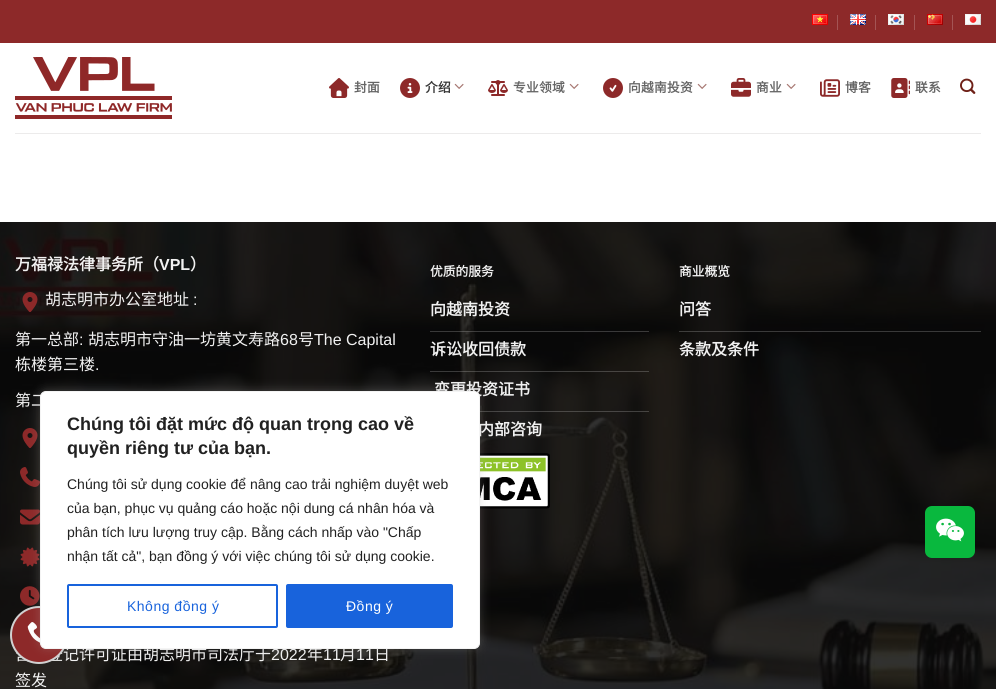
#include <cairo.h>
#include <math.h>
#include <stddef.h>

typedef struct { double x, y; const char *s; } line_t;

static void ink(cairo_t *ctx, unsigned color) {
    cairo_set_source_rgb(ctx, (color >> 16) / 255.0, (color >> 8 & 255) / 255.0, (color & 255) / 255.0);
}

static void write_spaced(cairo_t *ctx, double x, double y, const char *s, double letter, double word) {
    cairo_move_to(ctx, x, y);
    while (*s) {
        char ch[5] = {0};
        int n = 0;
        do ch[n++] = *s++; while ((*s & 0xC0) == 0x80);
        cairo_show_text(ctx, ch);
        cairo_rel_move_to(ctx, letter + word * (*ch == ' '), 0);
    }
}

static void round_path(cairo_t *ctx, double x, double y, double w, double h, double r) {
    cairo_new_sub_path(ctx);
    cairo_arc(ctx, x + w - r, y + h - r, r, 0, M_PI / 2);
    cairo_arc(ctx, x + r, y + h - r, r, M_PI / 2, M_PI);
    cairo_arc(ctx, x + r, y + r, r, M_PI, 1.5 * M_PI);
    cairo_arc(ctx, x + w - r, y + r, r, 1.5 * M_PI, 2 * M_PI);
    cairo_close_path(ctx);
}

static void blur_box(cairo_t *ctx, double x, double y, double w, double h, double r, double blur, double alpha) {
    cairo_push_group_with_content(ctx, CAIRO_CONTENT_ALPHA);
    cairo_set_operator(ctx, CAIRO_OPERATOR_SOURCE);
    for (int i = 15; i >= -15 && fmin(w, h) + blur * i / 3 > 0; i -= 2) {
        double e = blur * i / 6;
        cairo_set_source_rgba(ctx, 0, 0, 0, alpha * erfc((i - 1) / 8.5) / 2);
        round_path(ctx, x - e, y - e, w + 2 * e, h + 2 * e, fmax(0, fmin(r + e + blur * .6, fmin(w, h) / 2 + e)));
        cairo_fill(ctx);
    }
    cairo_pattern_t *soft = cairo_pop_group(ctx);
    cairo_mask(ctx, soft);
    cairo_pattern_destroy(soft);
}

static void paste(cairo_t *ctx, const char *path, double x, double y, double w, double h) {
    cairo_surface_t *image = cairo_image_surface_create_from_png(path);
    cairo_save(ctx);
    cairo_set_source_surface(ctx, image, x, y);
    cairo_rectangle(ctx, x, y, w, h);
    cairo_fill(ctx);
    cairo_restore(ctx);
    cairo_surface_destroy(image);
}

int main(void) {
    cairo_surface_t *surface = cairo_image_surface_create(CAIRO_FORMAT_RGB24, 996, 689);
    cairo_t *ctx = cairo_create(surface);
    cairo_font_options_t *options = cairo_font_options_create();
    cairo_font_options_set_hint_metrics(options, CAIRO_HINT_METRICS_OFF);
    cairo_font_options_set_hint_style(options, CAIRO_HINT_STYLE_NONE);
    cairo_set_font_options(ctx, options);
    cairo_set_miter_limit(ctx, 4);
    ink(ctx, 0xFFFFFF);
    cairo_paint(ctx);
    ink(ctx, 0x8D2929);
    cairo_rectangle(ctx, 0, 0, 996, 43);
    cairo_fill(ctx);
    paste(ctx, "media/1.png", 812, 14, 16, 11);
    ink(ctx, 0xA45454);
    cairo_rectangle(ctx, 837, 15, 1, 15);
    cairo_fill(ctx);
    paste(ctx, "media/2.png", 850, 14, 16, 11);
    cairo_rectangle(ctx, 875, 15, 1, 15);
    cairo_fill(ctx);
    paste(ctx, "media/3.png", 888, 14, 16, 11);
    cairo_rectangle(ctx, 914, 15, 1, 15);
    cairo_fill(ctx);
    paste(ctx, "media/4.png", 927, 14, 16, 11);
    cairo_rectangle(ctx, 952, 15, 1, 15);
    cairo_fill(ctx);
    paste(ctx, "media/5.png", 965, 14, 16, 11);
    paste(ctx, "media/6.png", 15, 57, 157, 62);
    paste(ctx, "media/7.png", 329, 78, 20, 20);
    cairo_select_font_face(ctx, "Noto Sans CJK SC", CAIRO_FONT_SLANT_NORMAL, CAIRO_FONT_WEIGHT_BOLD);
    cairo_set_font_size(ctx, 12.75);
    ink(ctx, 0x656565);
    write_spaced(ctx, 354, 92, "封面", 0.25, 0);
    paste(ctx, "media/8.png", 400, 78, 20, 20);
    ink(ctx, 0x363636);
    write_spaced(ctx, 425, 92, "介绍", 0.25, 0);
    paste(ctx, "media/9.png", 454, 83, 10, 6);
    paste(ctx, "media/10.png", 488, 80, 20, 16);
    ink(ctx, 0x656565);
    write_spaced(ctx, 513, 92, "专业领域", 0.25, 0);
    paste(ctx, "media/9.png", 569, 83, 10, 6);
    paste(ctx, "media/11.png", 603, 78, 20, 20);
    write_spaced(ctx, 628, 92, "向越南投资", 0.25, 0);
    paste(ctx, "media/9.png", 697, 83, 10, 6);
    paste(ctx, "media/12.png", 731, 78, 20, 19);
    write_spaced(ctx, 756, 92, "商业", 0.25, 0);
    paste(ctx, "media/9.png", 786, 83, 10, 6);
    paste(ctx, "media/13.png", 820, 79, 20, 18);
    write_spaced(ctx, 845, 92, "博客", 0.25, 0);
    paste(ctx, "media/14.png", 891, 78, 19, 20);
    write_spaced(ctx, 915, 92, "联系", 0.25, 0);
    paste(ctx, "media/15.png", 960, 78, 16, 16);
    ink(ctx, 0xECEBEB);
    cairo_rectangle(ctx, 15, 133, 966, 1);
    cairo_fill(ctx);
    paste(ctx, "media/16.png", 0, 222, 996, 467);
    cairo_set_font_size(ctx, 16);
    ink(ctx, 0xF1F1F1);
    cairo_move_to(ctx, 15, 270);
    cairo_show_text(ctx, "万福禄法律事务所（");
    cairo_select_font_face(ctx, "Liberation Sans", CAIRO_FONT_SLANT_NORMAL, CAIRO_FONT_WEIGHT_BOLD);
    cairo_move_to(ctx, 159, 270);
    cairo_show_text(ctx, "VPL");
    cairo_select_font_face(ctx, "Noto Sans CJK SC", CAIRO_FONT_SLANT_NORMAL, CAIRO_FONT_WEIGHT_BOLD);
    cairo_move_to(ctx, 190, 270);
    cairo_show_text(ctx, "）");
    paste(ctx, "media/17.png", 22, 292, 16, 20);
    cairo_select_font_face(ctx, "Noto Sans CJK SC", CAIRO_FONT_SLANT_NORMAL, CAIRO_FONT_WEIGHT_NORMAL);
    cairo_move_to(ctx, 45, 305);
    cairo_show_text(ctx, "胡志明市办公室地址");
    cairo_select_font_face(ctx, "Liberation Sans", CAIRO_FONT_SLANT_NORMAL, CAIRO_FONT_WEIGHT_NORMAL);
    cairo_move_to(ctx, 193, 305);
    cairo_show_text(ctx, ":");
    cairo_select_font_face(ctx, "Noto Sans CJK SC", CAIRO_FONT_SLANT_NORMAL, CAIRO_FONT_WEIGHT_NORMAL);
    cairo_move_to(ctx, 15, 345);
    cairo_show_text(ctx, "第一总部");
    cairo_select_font_face(ctx, "Liberation Sans", CAIRO_FONT_SLANT_NORMAL, CAIRO_FONT_WEIGHT_NORMAL);
    cairo_move_to(ctx, 79, 345);
    cairo_show_text(ctx, ":");
    cairo_select_font_face(ctx, "Noto Sans CJK SC", CAIRO_FONT_SLANT_NORMAL, CAIRO_FONT_WEIGHT_NORMAL);
    cairo_move_to(ctx, 88, 345);
    cairo_show_text(ctx, "胡志明市守油一坊黄文寿路");
    cairo_select_font_face(ctx, "Liberation Sans", CAIRO_FONT_SLANT_NORMAL, CAIRO_FONT_WEIGHT_NORMAL);
    cairo_move_to(ctx, 280, 345);
    cairo_show_text(ctx, "68");
    cairo_select_font_face(ctx, "Noto Sans CJK SC", CAIRO_FONT_SLANT_NORMAL, CAIRO_FONT_WEIGHT_NORMAL);
    cairo_move_to(ctx, 298, 345);
    cairo_show_text(ctx, "号");
    cairo_select_font_face(ctx, "Liberation Sans", CAIRO_FONT_SLANT_NORMAL, CAIRO_FONT_WEIGHT_NORMAL);
    cairo_move_to(ctx, 314, 345);
    cairo_show_text(ctx, "The Capital");
    cairo_select_font_face(ctx, "Noto Sans CJK SC", CAIRO_FONT_SLANT_NORMAL, CAIRO_FONT_WEIGHT_NORMAL);
    cairo_move_to(ctx, 15, 370);
    cairo_show_text(ctx, "栋楼第三楼");
    cairo_select_font_face(ctx, "Liberation Sans", CAIRO_FONT_SLANT_NORMAL, CAIRO_FONT_WEIGHT_NORMAL);
    cairo_move_to(ctx, 95, 370);
    cairo_show_text(ctx, ".");
    cairo_select_font_face(ctx, "Noto Sans CJK SC", CAIRO_FONT_SLANT_NORMAL, CAIRO_FONT_WEIGHT_NORMAL);
    cairo_move_to(ctx, 15, 406);
    cairo_show_text(ctx, "第二");
    paste(ctx, "media/18.png", 22, 428, 16, 20);
    paste(ctx, "media/19.png", 20, 467, 20, 20);
    paste(ctx, "media/20.png", 20, 509, 20, 16);
    paste(ctx, "media/21.png", 20, 547, 20, 20);
    paste(ctx, "media/22.png", 20, 586, 20, 20);
    cairo_move_to(ctx, 15, 660);
    cairo_show_text(ctx, "营业登记许可证由胡志明市司法厅于");
    cairo_select_font_face(ctx, "Liberation Sans", CAIRO_FONT_SLANT_NORMAL, CAIRO_FONT_WEIGHT_NORMAL);
    cairo_move_to(ctx, 271, 660);
    cairo_show_text(ctx, "2022");
    cairo_select_font_face(ctx, "Noto Sans CJK SC", CAIRO_FONT_SLANT_NORMAL, CAIRO_FONT_WEIGHT_NORMAL);
    cairo_move_to(ctx, 307, 660);
    cairo_show_text(ctx, "年");
    cairo_select_font_face(ctx, "Liberation Sans", CAIRO_FONT_SLANT_NORMAL, CAIRO_FONT_WEIGHT_NORMAL);
    cairo_move_to(ctx, 323, 660);
    cairo_show_text(ctx, "11");
    cairo_select_font_face(ctx, "Noto Sans CJK SC", CAIRO_FONT_SLANT_NORMAL, CAIRO_FONT_WEIGHT_NORMAL);
    cairo_move_to(ctx, 340, 660);
    cairo_show_text(ctx, "月");
    cairo_select_font_face(ctx, "Liberation Sans", CAIRO_FONT_SLANT_NORMAL, CAIRO_FONT_WEIGHT_NORMAL);
    cairo_move_to(ctx, 356, 660);
    cairo_show_text(ctx, "11");
    cairo_select_font_face(ctx, "Noto Sans CJK SC", CAIRO_FONT_SLANT_NORMAL, CAIRO_FONT_WEIGHT_NORMAL);
    cairo_move_to(ctx, 374, 660);
    cairo_show_text(ctx, "日");
    cairo_move_to(ctx, 15, 686);
    cairo_show_text(ctx, "签发");
    cairo_select_font_face(ctx, "Noto Sans CJK SC", CAIRO_FONT_SLANT_NORMAL, CAIRO_FONT_WEIGHT_BOLD);
    cairo_set_font_size(ctx, 12.75);
    cairo_move_to(ctx, 430, 276);
    cairo_show_text(ctx, "优质的服务");
    cairo_set_source_rgba(ctx, 1, 1, 1, 0.2);
    cairo_rectangle(ctx, 430, 331, 219, 1);
    cairo_fill(ctx);
    cairo_set_font_size(ctx, 16);
    ink(ctx, 0xF1F1F1);
    cairo_move_to(ctx, 430, 315);
    cairo_show_text(ctx, "向越南投资");
    cairo_set_source_rgba(ctx, 1, 1, 1, 0.2);
    cairo_rectangle(ctx, 430, 371, 219, 1);
    cairo_fill(ctx);
    ink(ctx, 0xF1F1F1);
    cairo_move_to(ctx, 430, 355);
    cairo_show_text(ctx, "诉讼收回债款");
    cairo_set_source_rgba(ctx, 1, 1, 1, 0.2);
    cairo_rectangle(ctx, 480, 411, 169, 1);
    cairo_fill(ctx);
    ink(ctx, 0xF1F1F1);
    cairo_move_to(ctx, 434, 395);
    cairo_show_text(ctx, "变更投资证书");
    cairo_move_to(ctx, 478, 435);
    cairo_show_text(ctx, "内部咨询");
    paste(ctx, "media/23.png", 480, 453, 70, 56);
    cairo_set_font_size(ctx, 12.75);
    cairo_move_to(ctx, 679, 276);
    cairo_show_text(ctx, "商业概览");
    cairo_set_source_rgba(ctx, 1, 1, 1, 0.2);
    cairo_rectangle(ctx, 679, 331, 302, 1);
    cairo_fill(ctx);
    cairo_set_font_size(ctx, 16);
    ink(ctx, 0xF1F1F1);
    cairo_move_to(ctx, 679, 315);
    cairo_show_text(ctx, "问答");
    cairo_move_to(ctx, 679, 355);
    cairo_show_text(ctx, "条款及条件");
    ink(ctx, 0x8D2929);
    cairo_new_path(ctx);
    cairo_arc(ctx, 39, 635, 28, 0, 2 * M_PI);
    cairo_fill_preserve(ctx);
    ink(ctx, 0xD1D1D1);
    cairo_stroke(ctx);
    paste(ctx, "media/25.png", 27, 622, 13, 21);
    ink(ctx, 0xACABAB);
    blur_box(ctx, 40, 390, 440, 258, 6, 5, 0.3);
    ink(ctx, 0xFFFFFF);
    round_path(ctx, 40.5, 391.5, 439, 257, 5.5);
    cairo_fill_preserve(ctx);
    ink(ctx, 0xF4F4F4);
    cairo_set_line_width(ctx, 1);
    cairo_stroke(ctx);
    cairo_select_font_face(ctx, "Liberation Sans", CAIRO_FONT_SLANT_NORMAL, CAIRO_FONT_WEIGHT_BOLD);
    cairo_set_font_size(ctx, 18);
    ink(ctx, 0x212121);
    cairo_move_to(ctx, 67, 430);
    cairo_show_text(ctx, "Chúng tôi đặt mức độ quan trọng cao về");
    cairo_move_to(ctx, 67, 454);
    cairo_show_text(ctx, "quyền riêng tư của bạn.");
    cairo_select_font_face(ctx, "Liberation Sans", CAIRO_FONT_SLANT_NORMAL, CAIRO_FONT_WEIGHT_NORMAL);
    cairo_set_font_size(ctx, 14);
    {
        static const line_t items[] = {
            {67, 489, "Chúng tôi sử dụng cookie để nâng cao trải nghiệm duyệt web"},
            {67, 513, "của bạn, phục vụ quảng cáo hoặc nội dung cá nhân hóa và"},
            {67, 537, "phân tích lưu lượng truy cập. Bằng cách nhấp vào \"Chấp"},
            {67, 561, "nhận tất cả\", bạn đồng ý với việc chúng tôi sử dụng cookie."},
        };
        for (size_t i = 0; i < sizeof items / sizeof *items; i++) {
            cairo_move_to(ctx, items[i].x, items[i].y);
            cairo_show_text(ctx, items[i].s);
        }
    }
    round_path(ctx, 68, 585, 209, 42, 1);
    ink(ctx, 0x1863DC);
    cairo_set_line_width(ctx, 2);
    cairo_stroke(ctx);
    write_spaced(ctx, 127, 611, "Không đồng ý", 0.5, 0);
    round_path(ctx, 287, 585, 165, 42, 1);
    cairo_fill_preserve(ctx);
    cairo_stroke(ctx);
    ink(ctx, 0xFFFFFF);
    write_spaced(ctx, 346, 611, "Đồng ý", 0.5, 0);
    ink(ctx, 0x09B83E);
    round_path(ctx, 925, 506, 50, 52, 7);
    cairo_fill(ctx);
    paste(ctx, "media/24.png", 936, 518, 28, 24);
    cairo_surface_write_to_png(surface, "image.png");
    cairo_font_options_destroy(options);
    cairo_destroy(ctx);
    cairo_surface_destroy(surface);
    return 0;
}
